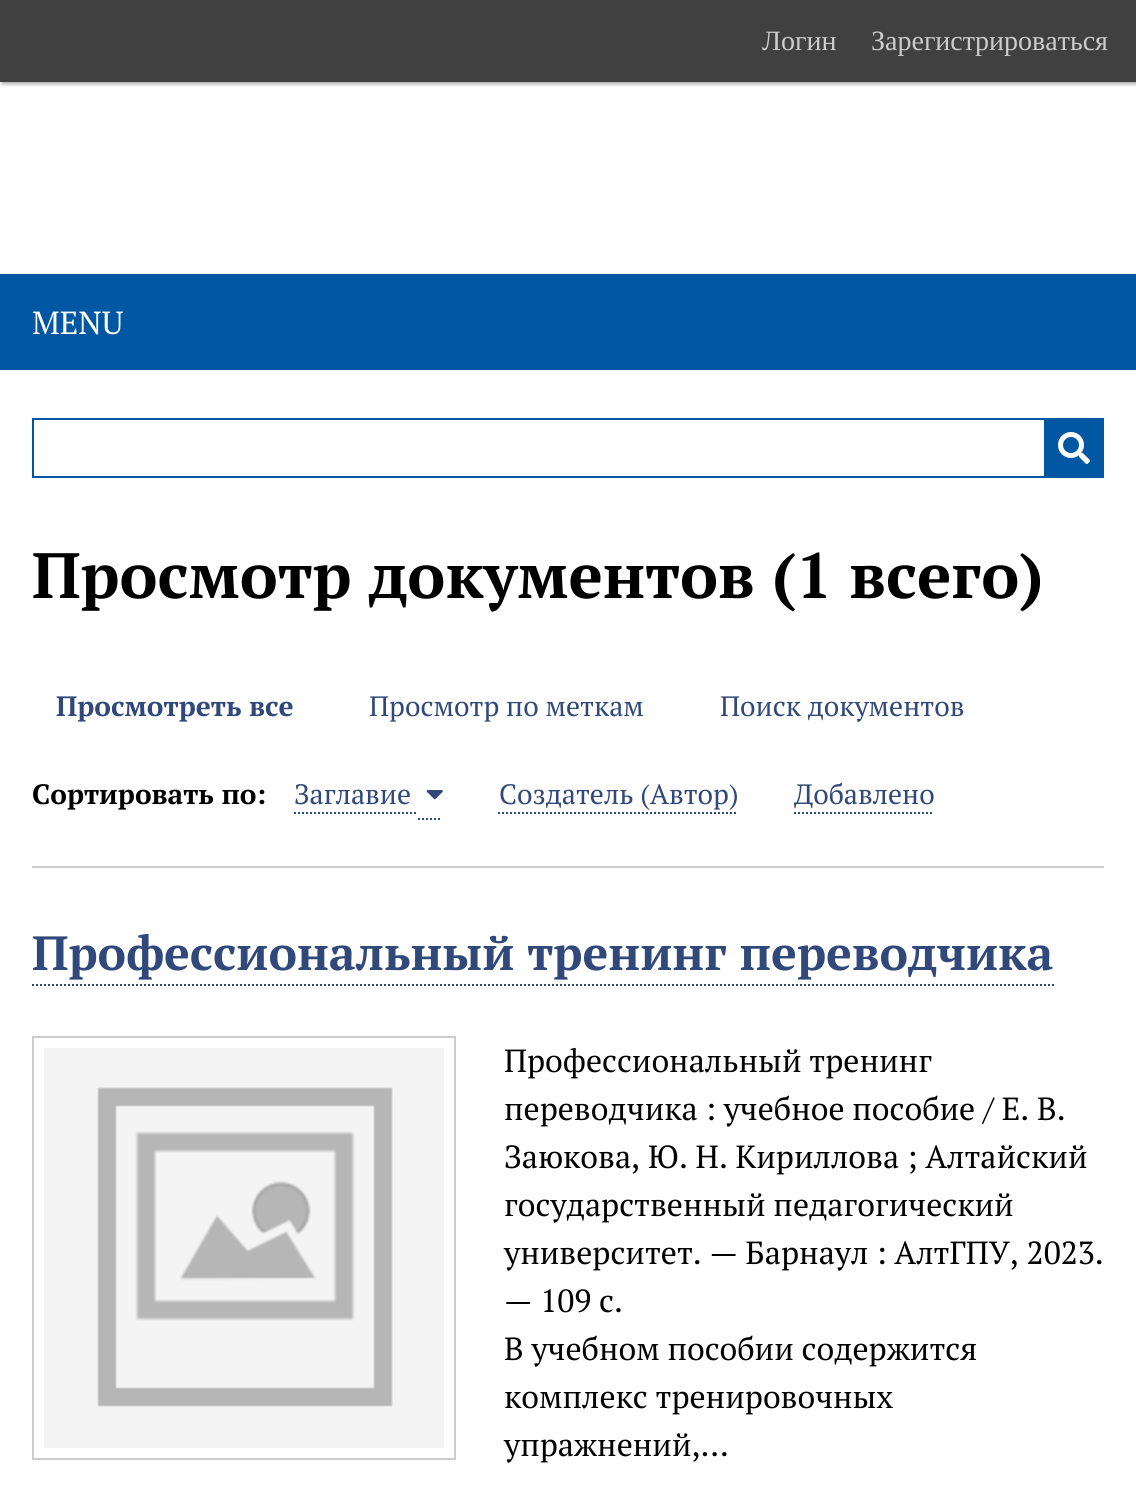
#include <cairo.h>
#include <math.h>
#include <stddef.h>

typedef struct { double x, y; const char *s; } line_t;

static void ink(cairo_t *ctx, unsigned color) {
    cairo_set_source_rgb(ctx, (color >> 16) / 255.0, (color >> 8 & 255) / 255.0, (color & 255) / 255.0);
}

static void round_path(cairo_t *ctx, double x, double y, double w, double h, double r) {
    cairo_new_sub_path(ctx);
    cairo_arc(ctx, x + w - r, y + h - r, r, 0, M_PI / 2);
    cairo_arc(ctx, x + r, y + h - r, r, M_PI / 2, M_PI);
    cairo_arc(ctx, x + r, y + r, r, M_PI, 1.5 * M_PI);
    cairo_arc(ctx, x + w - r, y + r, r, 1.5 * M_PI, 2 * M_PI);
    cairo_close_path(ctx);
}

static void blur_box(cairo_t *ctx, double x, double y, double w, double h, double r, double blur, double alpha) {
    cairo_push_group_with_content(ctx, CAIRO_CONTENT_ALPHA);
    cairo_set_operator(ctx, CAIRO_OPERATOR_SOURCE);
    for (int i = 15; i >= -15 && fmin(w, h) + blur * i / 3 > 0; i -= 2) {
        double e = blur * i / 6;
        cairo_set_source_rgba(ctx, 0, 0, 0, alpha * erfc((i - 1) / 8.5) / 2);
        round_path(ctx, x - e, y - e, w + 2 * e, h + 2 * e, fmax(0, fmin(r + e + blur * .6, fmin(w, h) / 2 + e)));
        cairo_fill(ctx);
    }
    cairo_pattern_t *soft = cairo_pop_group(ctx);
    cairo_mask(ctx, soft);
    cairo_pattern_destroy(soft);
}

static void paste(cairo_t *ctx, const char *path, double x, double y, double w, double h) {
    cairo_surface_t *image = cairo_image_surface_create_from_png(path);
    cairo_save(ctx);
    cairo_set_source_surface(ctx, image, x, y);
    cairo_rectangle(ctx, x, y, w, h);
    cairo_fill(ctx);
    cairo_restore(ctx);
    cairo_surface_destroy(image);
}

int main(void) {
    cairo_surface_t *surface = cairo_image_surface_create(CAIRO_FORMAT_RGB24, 1136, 1511);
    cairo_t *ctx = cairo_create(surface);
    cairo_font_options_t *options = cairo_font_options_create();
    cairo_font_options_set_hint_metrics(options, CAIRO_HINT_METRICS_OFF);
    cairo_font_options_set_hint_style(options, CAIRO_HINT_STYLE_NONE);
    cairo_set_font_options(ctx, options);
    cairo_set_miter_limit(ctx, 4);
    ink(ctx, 0xFFFFFF);
    cairo_paint(ctx);
    ink(ctx, 0x000000);
    blur_box(ctx, 2, 2, 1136, 82, 0, 2, 0.35);
    ink(ctx, 0x404040);
    cairo_rectangle(ctx, 0, 0, 1136, 82);
    cairo_fill(ctx);
    cairo_select_font_face(ctx, "Liberation Serif", CAIRO_FONT_SLANT_NORMAL, CAIRO_FONT_WEIGHT_NORMAL);
    cairo_set_font_size(ctx, 28);
    ink(ctx, 0xCCCCCC);
    cairo_move_to(ctx, 762, 50);
    cairo_show_text(ctx, "Логин");
    cairo_move_to(ctx, 871, 50);
    cairo_show_text(ctx, "Зарегистрироваться");
    ink(ctx, 0x0257A3);
    cairo_rectangle(ctx, 0, 274, 1136, 96);
    cairo_fill(ctx);
    cairo_select_font_face(ctx, "PT Serif", CAIRO_FONT_SLANT_NORMAL, CAIRO_FONT_WEIGHT_NORMAL);
    cairo_set_font_size(ctx, 32);
    ink(ctx, 0xFFFFFF);
    cairo_move_to(ctx, 32, 334);
    cairo_show_text(ctx, "MENU");
    cairo_rectangle(ctx, 33, 419, 1070, 58);
    ink(ctx, 0x0257A3);
    cairo_stroke(ctx);
    cairo_rectangle(ctx, 1044, 420, 58, 56);
    cairo_fill(ctx);
    paste(ctx, "media/1.png", 1058, 432, 32, 32);
    cairo_select_font_face(ctx, "PT Serif", CAIRO_FONT_SLANT_NORMAL, CAIRO_FONT_WEIGHT_BOLD);
    cairo_set_font_size(ctx, 64);
    ink(ctx, 0x000000);
    cairo_move_to(ctx, 32, 598);
    cairo_show_text(ctx, "Просмотр документов (1 всего)");
    cairo_set_font_size(ctx, 28);
    ink(ctx, 0x30487A);
    cairo_move_to(ctx, 56, 716);
    cairo_show_text(ctx, "Просмотреть все");
    cairo_select_font_face(ctx, "PT Serif", CAIRO_FONT_SLANT_NORMAL, CAIRO_FONT_WEIGHT_NORMAL);
    cairo_move_to(ctx, 369, 716);
    cairo_show_text(ctx, "Просмотр по меткам");
    cairo_move_to(ctx, 720, 716);
    cairo_show_text(ctx, "Поиск документов");
    cairo_select_font_face(ctx, "PT Serif", CAIRO_FONT_SLANT_NORMAL, CAIRO_FONT_WEIGHT_BOLD);
    ink(ctx, 0x000000);
    cairo_move_to(ctx, 32, 804);
    cairo_show_text(ctx, "Сортировать по:");
    cairo_new_path(ctx);
    cairo_move_to(ctx, 294, 813);
    cairo_line_to(ctx, 418, 813);
    ink(ctx, 0x30487A);
    cairo_set_dash(ctx, (double[]){2, 2}, 2, 0);
    cairo_stroke(ctx);
    cairo_new_path(ctx);
    cairo_move_to(ctx, 418, 819);
    cairo_line_to(ctx, 442, 819);
    cairo_stroke(ctx);
    cairo_select_font_face(ctx, "PT Serif", CAIRO_FONT_SLANT_NORMAL, CAIRO_FONT_WEIGHT_NORMAL);
    cairo_move_to(ctx, 294, 804);
    cairo_show_text(ctx, "Заглавие");
    paste(ctx, "media/2.png", 426, 790, 17, 10);
    cairo_move_to(ctx, 499, 804);
    cairo_show_text(ctx, "Создатель (Автор)");
    cairo_new_path(ctx);
    cairo_move_to(ctx, 498, 813);
    cairo_line_to(ctx, 738, 813);
    cairo_stroke(ctx);
    cairo_move_to(ctx, 794, 804);
    cairo_show_text(ctx, "Добавлено");
    cairo_new_path(ctx);
    cairo_move_to(ctx, 794, 813);
    cairo_line_to(ctx, 934, 813);
    cairo_stroke(ctx);
    ink(ctx, 0xCCCCCC);
    cairo_rectangle(ctx, 32, 866, 1072, 2);
    cairo_fill(ctx);
    cairo_select_font_face(ctx, "PT Serif", CAIRO_FONT_SLANT_NORMAL, CAIRO_FONT_WEIGHT_BOLD);
    cairo_set_font_size(ctx, 48);
    ink(ctx, 0x30487A);
    cairo_move_to(ctx, 32, 970);
    cairo_show_text(ctx, "Профессиональный тренинг переводчика");
    cairo_new_path(ctx);
    cairo_move_to(ctx, 32, 985);
    cairo_line_to(ctx, 1054, 985);
    cairo_stroke(ctx);
    cairo_rectangle(ctx, 33, 1037, 422, 422);
    ink(ctx, 0xCCCCCC);
    cairo_set_dash(ctx, NULL, 0, 0);
    cairo_stroke(ctx);
    paste(ctx, "media/3.png", 44, 1048, 400, 400);
    cairo_select_font_face(ctx, "PT Serif", CAIRO_FONT_SLANT_NORMAL, CAIRO_FONT_WEIGHT_NORMAL);
    cairo_set_font_size(ctx, 32);
    ink(ctx, 0x000000);
    {
        static const line_t items[] = {
            {504, 1072, "Профессиональный тренинг"},
            {504, 1120, "переводчика : учебное пособие / Е. В."},
            {504, 1168, "Заюкова, Ю. Н. Кириллова ; Алтайский"},
            {504, 1216, "государственный педагогический"},
            {504, 1264, "университет. — Барнаул : АлтГПУ, 2023."},
            {504, 1312, "— 109 с."},
            {504, 1360, "В учебном пособии содержится"},
            {504, 1408, "комплекс тренировочных"},
            {504, 1456, "упражнений,…"},
        };
        for (size_t i = 0; i < sizeof items / sizeof *items; i++) {
            cairo_move_to(ctx, items[i].x, items[i].y);
            cairo_show_text(ctx, items[i].s);
        }
    }
    cairo_surface_write_to_png(surface, "image.png");
    cairo_font_options_destroy(options);
    cairo_destroy(ctx);
    cairo_surface_destroy(surface);
    return 0;
}
